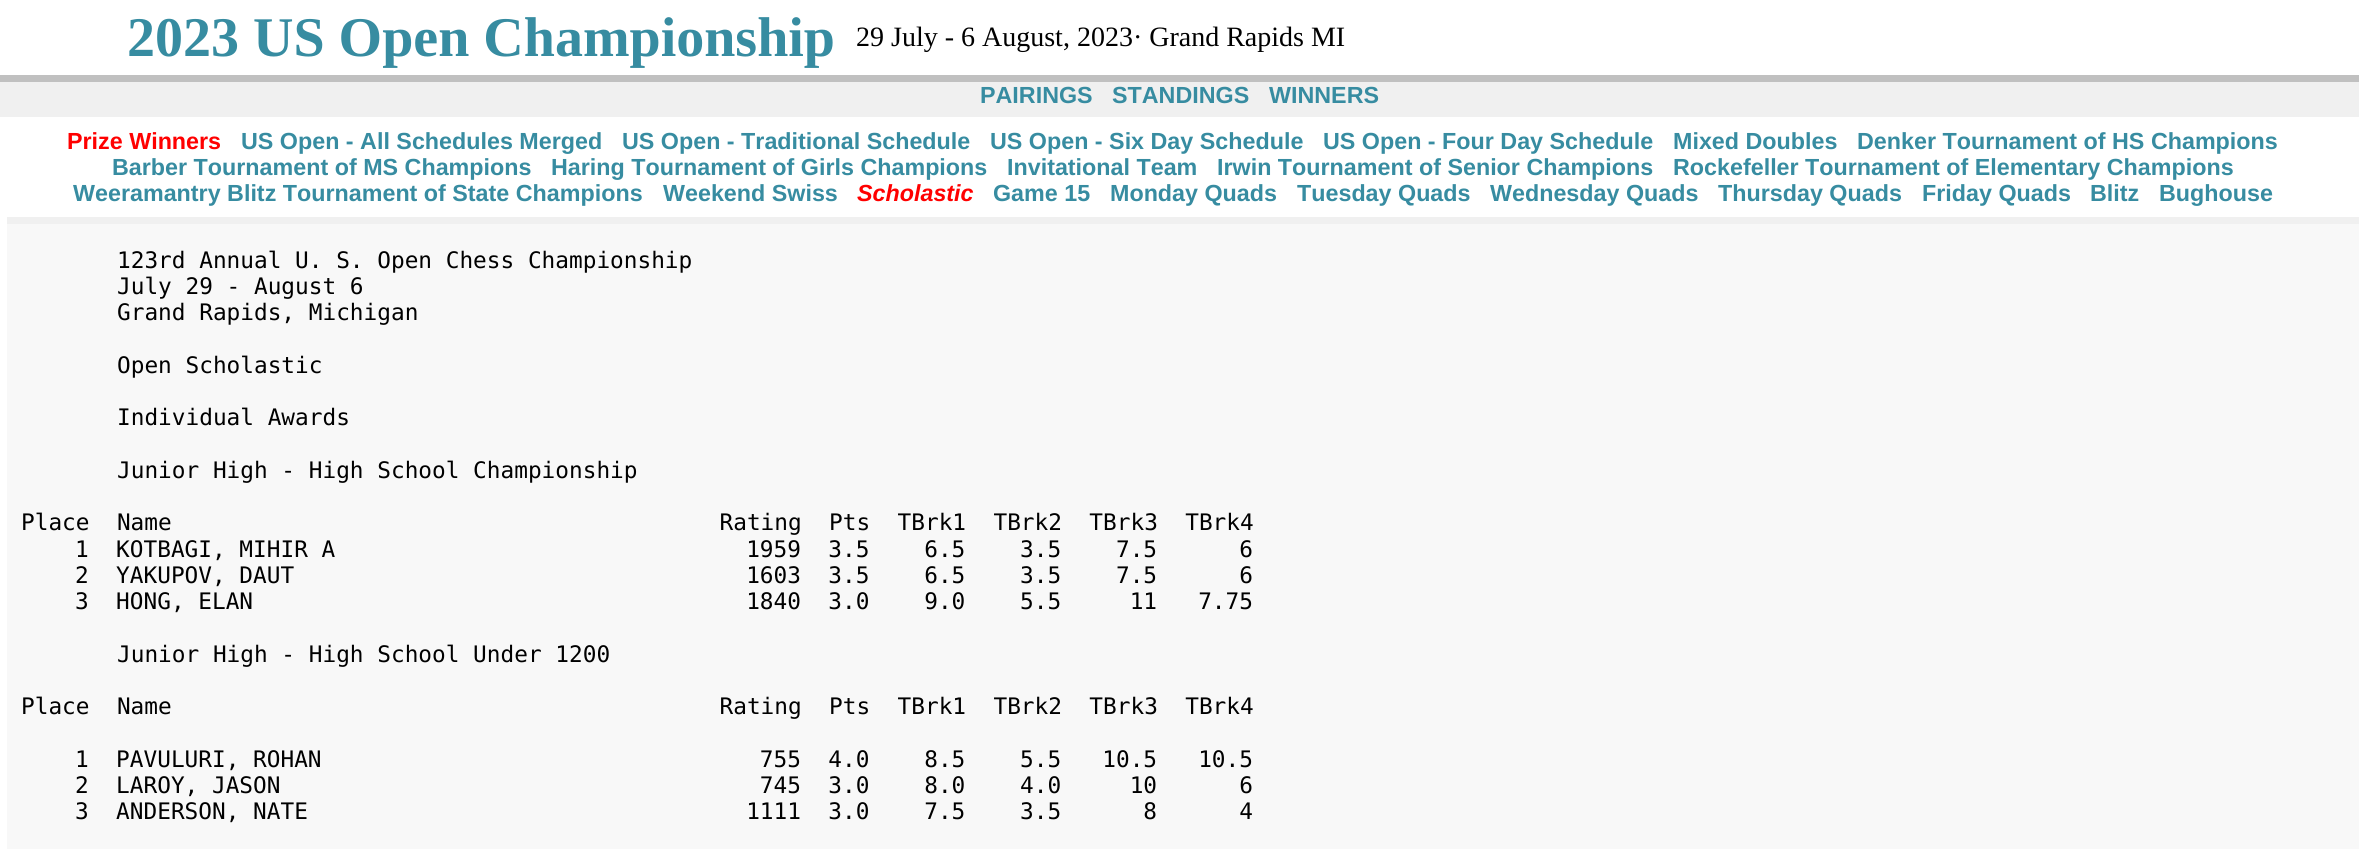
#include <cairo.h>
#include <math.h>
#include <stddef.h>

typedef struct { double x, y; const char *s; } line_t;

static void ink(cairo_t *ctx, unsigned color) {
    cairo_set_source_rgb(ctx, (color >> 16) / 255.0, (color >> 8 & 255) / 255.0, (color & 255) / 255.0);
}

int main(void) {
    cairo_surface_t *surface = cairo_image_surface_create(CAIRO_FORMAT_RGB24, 2359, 849);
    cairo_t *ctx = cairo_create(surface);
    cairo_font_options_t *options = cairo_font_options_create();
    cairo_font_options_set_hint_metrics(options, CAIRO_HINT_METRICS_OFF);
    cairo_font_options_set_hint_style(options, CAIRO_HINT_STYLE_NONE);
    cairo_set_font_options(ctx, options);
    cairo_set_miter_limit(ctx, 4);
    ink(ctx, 0xFFFFFF);
    cairo_paint(ctx);
    cairo_select_font_face(ctx, "Liberation Serif", CAIRO_FONT_SLANT_NORMAL, CAIRO_FONT_WEIGHT_BOLD);
    cairo_set_font_size(ctx, 56);
    ink(ctx, 0x378CA1);
    cairo_move_to(ctx, 127, 56);
    cairo_show_text(ctx, "2023 US Open Championship");
    cairo_select_font_face(ctx, "Liberation Serif", CAIRO_FONT_SLANT_NORMAL, CAIRO_FONT_WEIGHT_NORMAL);
    cairo_set_font_size(ctx, 28);
    ink(ctx, 0x000000);
    cairo_move_to(ctx, 856, 46);
    cairo_show_text(ctx, "29 July - 6 August, 2023· Grand Rapids MI");
    ink(ctx, 0xF0F0F0);
    cairo_rectangle(ctx, 0, 82, 2359, 35);
    cairo_fill(ctx);
    ink(ctx, 0xC0C0C0);
    cairo_rectangle(ctx, 0, 75, 2359, 7);
    cairo_fill(ctx);
    cairo_select_font_face(ctx, "Liberation Sans", CAIRO_FONT_SLANT_NORMAL, CAIRO_FONT_WEIGHT_BOLD);
    cairo_set_font_size(ctx, 23.3);
    ink(ctx, 0x378CA1);
    {
        static const line_t items[] = {
            {980, 103, "PAIRINGS"},
            {1112, 103, "STANDINGS"},
            {1269, 103, "WINNERS"},
        };
        for (size_t i = 0; i < sizeof items / sizeof *items; i++) {
            cairo_move_to(ctx, items[i].x, items[i].y);
            cairo_show_text(ctx, items[i].s);
        }
    }
    ink(ctx, 0xFF0000);
    cairo_move_to(ctx, 67, 149);
    cairo_show_text(ctx, "Prize Winners");
    ink(ctx, 0x378CA1);
    {
        static const line_t items[] = {
            {241, 149, "US Open - All Schedules Merged"},
            {622, 149, "US Open - Traditional Schedule"},
            {990, 149, "US Open - Six Day Schedule"},
            {1323, 149, "US Open - Four Day Schedule"},
            {1673, 149, "Mixed Doubles"},
            {1857, 149, "Denker Tournament of HS Champions"},
            {112, 175, "Barber Tournament of MS Champions"},
            {551, 175, "Haring Tournament of Girls Champions"},
            {1007, 175, "Invitational Team"},
            {1217, 175, "Irwin Tournament of Senior Champions"},
            {1673, 175, "Rockefeller Tournament of Elementary Champions"},
            {73, 201, "Weeramantry Blitz Tournament of State Champions"},
            {663, 201, "Weekend Swiss"},
        };
        for (size_t i = 0; i < sizeof items / sizeof *items; i++) {
            cairo_move_to(ctx, items[i].x, items[i].y);
            cairo_show_text(ctx, items[i].s);
        }
    }
    cairo_select_font_face(ctx, "Liberation Sans", CAIRO_FONT_SLANT_ITALIC, CAIRO_FONT_WEIGHT_BOLD);
    ink(ctx, 0xFF0000);
    cairo_move_to(ctx, 857, 201);
    cairo_show_text(ctx, "Scholastic");
    cairo_select_font_face(ctx, "Liberation Sans", CAIRO_FONT_SLANT_NORMAL, CAIRO_FONT_WEIGHT_BOLD);
    ink(ctx, 0x378CA1);
    {
        static const line_t items[] = {
            {993, 201, "Game 15"},
            {1110, 201, "Monday Quads"},
            {1297, 201, "Tuesday Quads"},
            {1490, 201, "Wednesday Quads"},
            {1718, 201, "Thursday Quads"},
            {1922, 201, "Friday Quads"},
            {2090, 201, "Blitz"},
            {2159, 201, "Bughouse"},
        };
        for (size_t i = 0; i < sizeof items / sizeof *items; i++) {
            cairo_move_to(ctx, items[i].x, items[i].y);
            cairo_show_text(ctx, items[i].s);
        }
    }
    ink(ctx, 0xF8F8F8);
    cairo_rectangle(ctx, 7, 224, 2352, 625);
    cairo_fill(ctx);
    ink(ctx, 0xF0F0F0);
    cairo_rectangle(ctx, 7, 217, 2352, 7);
    cairo_fill(ctx);
    cairo_select_font_face(ctx, "DejaVu Sans Mono", CAIRO_FONT_SLANT_NORMAL, CAIRO_FONT_WEIGHT_NORMAL);
    cairo_set_font_size(ctx, 22.75);
    ink(ctx, 0x000000);
    {
        static const line_t items[] = {
            {117, 268, "123rd Annual U. S. Open Chess Championship"},
            {117, 294, "July 29 - August 6"},
            {117, 320, "Grand Rapids, Michigan"},
            {117, 373, "Open Scholastic"},
            {117, 425, "Individual Awards"},
            {117, 478, "Junior High - High School Championship"},
            {21, 530, "Place  Name                                        Rating  Pts  TBrk1  TBrk2  TBrk3  TBrk4"},
            {75, 557, "1  KOTBAGI, MIHIR A                              1959  3.5    6.5    3.5    7.5      6"},
            {75, 583, "2  YAKUPOV, DAUT                                 1603  3.5    6.5    3.5    7.5      6"},
            {75, 609, "3  HONG, ELAN                                    1840  3.0    9.0    5.5     11   7.75"},
            {117, 662, "Junior High - High School Under 1200"},
            {21, 714, "Place  Name                                        Rating  Pts  TBrk1  TBrk2  TBrk3  TBrk4"},
            {75, 767, "1  PAVULURI, ROHAN                                755  4.0    8.5    5.5   10.5   10.5"},
            {75, 793, "2  LAROY, JASON                                   745  3.0    8.0    4.0     10      6"},
            {75, 819, "3  ANDERSON, NATE                                1111  3.0    7.5    3.5      8      4"},
        };
        for (size_t i = 0; i < sizeof items / sizeof *items; i++) {
            cairo_move_to(ctx, items[i].x, items[i].y);
            cairo_show_text(ctx, items[i].s);
        }
    }
    cairo_surface_write_to_png(surface, "image.png");
    cairo_font_options_destroy(options);
    cairo_destroy(ctx);
    cairo_surface_destroy(surface);
    return 0;
}
